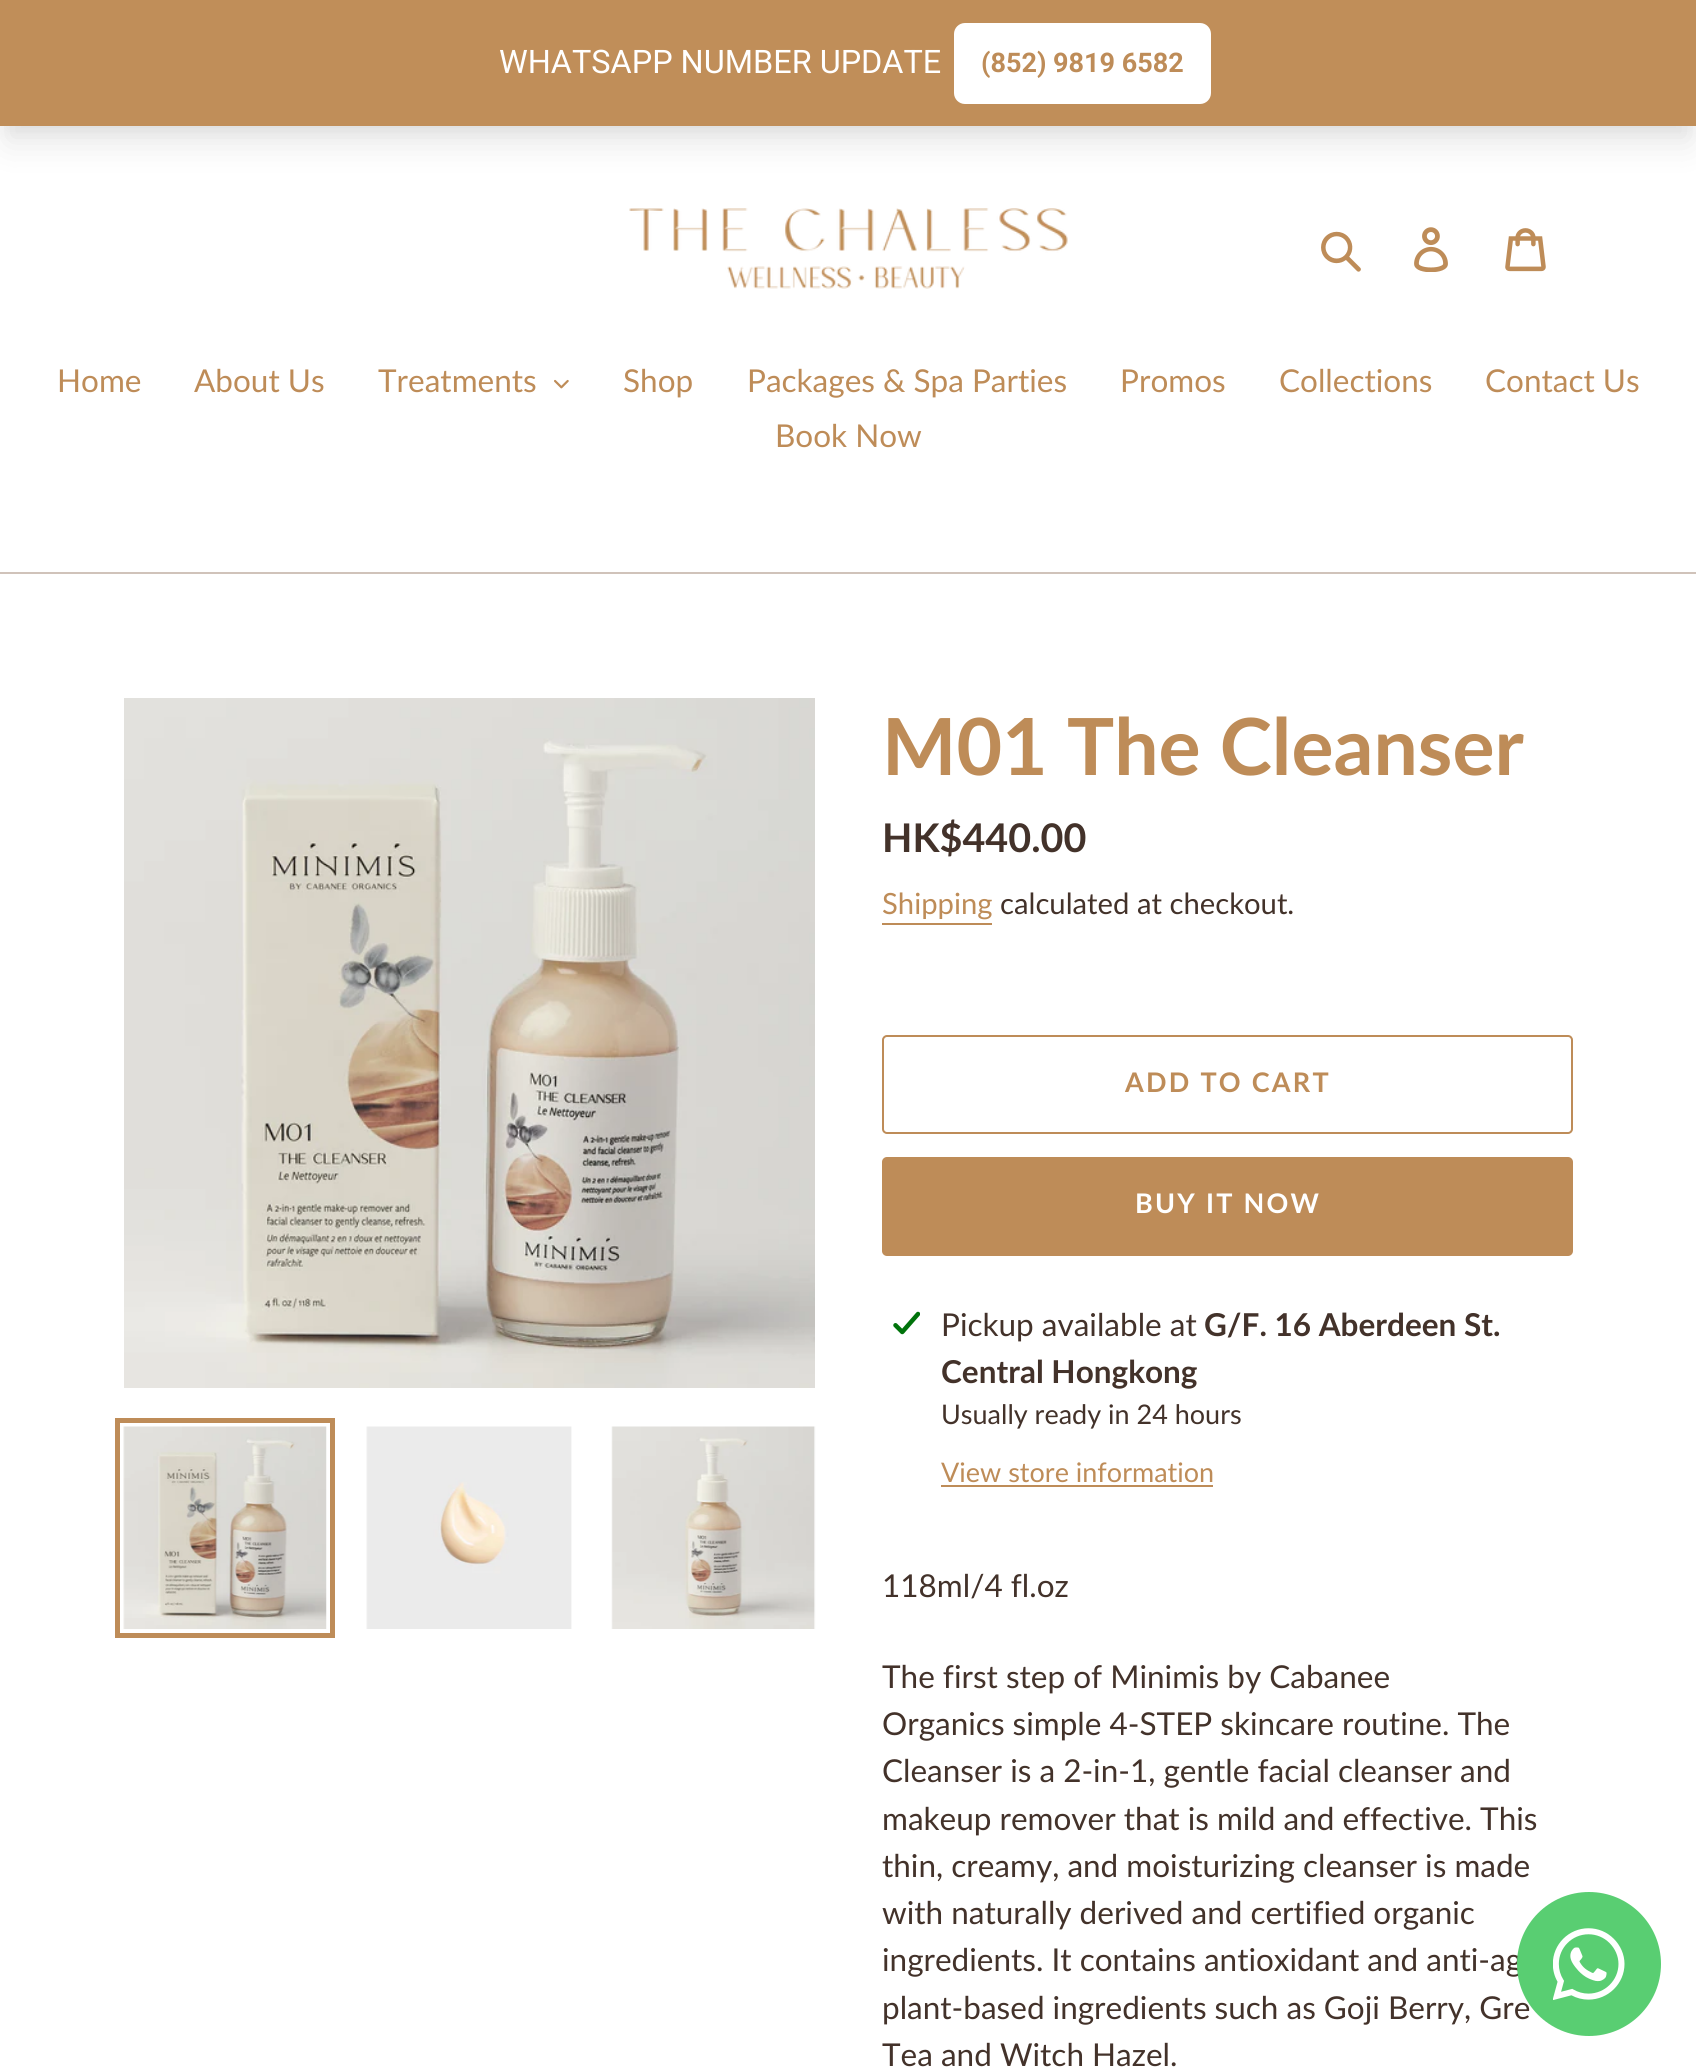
#include <cairo.h>
#include <math.h>
#include <stddef.h>

typedef struct { double x, y; const char *s; } line_t;

static void ink(cairo_t *ctx, unsigned color) {
    cairo_set_source_rgb(ctx, (color >> 16) / 255.0, (color >> 8 & 255) / 255.0, (color & 255) / 255.0);
}

static void write_spaced(cairo_t *ctx, double x, double y, const char *s, double letter, double word) {
    cairo_move_to(ctx, x, y);
    while (*s) {
        char ch[5] = {0};
        int n = 0;
        do ch[n++] = *s++; while ((*s & 0xC0) == 0x80);
        cairo_show_text(ctx, ch);
        cairo_rel_move_to(ctx, letter + word * (*ch == ' '), 0);
    }
}

static void round_path(cairo_t *ctx, double x, double y, double w, double h, double r) {
    cairo_new_sub_path(ctx);
    cairo_arc(ctx, x + w - r, y + h - r, r, 0, M_PI / 2);
    cairo_arc(ctx, x + r, y + h - r, r, M_PI / 2, M_PI);
    cairo_arc(ctx, x + r, y + r, r, M_PI, 1.5 * M_PI);
    cairo_arc(ctx, x + w - r, y + r, r, 1.5 * M_PI, 2 * M_PI);
    cairo_close_path(ctx);
}

static void blur_box(cairo_t *ctx, double x, double y, double w, double h, double r, double blur, double alpha) {
    cairo_push_group_with_content(ctx, CAIRO_CONTENT_ALPHA);
    cairo_set_operator(ctx, CAIRO_OPERATOR_SOURCE);
    for (int i = 15; i >= -15 && fmin(w, h) + blur * i / 3 > 0; i -= 2) {
        double e = blur * i / 6;
        cairo_set_source_rgba(ctx, 0, 0, 0, alpha * erfc((i - 1) / 8.5) / 2);
        round_path(ctx, x - e, y - e, w + 2 * e, h + 2 * e, fmax(0, fmin(r + e + blur * .6, fmin(w, h) / 2 + e)));
        cairo_fill(ctx);
    }
    cairo_pattern_t *soft = cairo_pop_group(ctx);
    cairo_mask(ctx, soft);
    cairo_pattern_destroy(soft);
}

static void paste(cairo_t *ctx, const char *path, double x, double y, double w, double h) {
    cairo_surface_t *image = cairo_image_surface_create_from_png(path);
    cairo_save(ctx);
    cairo_set_source_surface(ctx, image, x, y);
    cairo_rectangle(ctx, x, y, w, h);
    cairo_fill(ctx);
    cairo_restore(ctx);
    cairo_surface_destroy(image);
}

int main(void) {
    cairo_surface_t *surface = cairo_image_surface_create(CAIRO_FORMAT_RGB24, 1696, 2072);
    cairo_t *ctx = cairo_create(surface);
    cairo_font_options_t *options = cairo_font_options_create();
    cairo_font_options_set_hint_metrics(options, CAIRO_HINT_METRICS_OFF);
    cairo_font_options_set_hint_style(options, CAIRO_HINT_STYLE_NONE);
    cairo_set_font_options(ctx, options);
    cairo_set_miter_limit(ctx, 4);
    ink(ctx, 0xFFFFFF);
    cairo_paint(ctx);
    ink(ctx, 0x000000);
    blur_box(ctx, 5, 14, 1687, 117, 0, 7, 0.05);
    blur_box(ctx, 7, 29, 1683, 113, 0, 17, 0.1);
    ink(ctx, 0xC08E59);
    cairo_rectangle(ctx, 0, 0, 1696, 126);
    cairo_fill(ctx);
    cairo_select_font_face(ctx, "Roboto", CAIRO_FONT_SLANT_NORMAL, CAIRO_FONT_WEIGHT_NORMAL);
    cairo_set_font_size(ctx, 32.4);
    ink(ctx, 0xFFFFFF);
    cairo_move_to(ctx, 499, 73);
    cairo_show_text(ctx, "WHATSAPP NUMBER UPDATE");
    round_path(ctx, 954, 23, 257, 81, 11);
    cairo_fill(ctx);
    cairo_select_font_face(ctx, "Roboto", CAIRO_FONT_SLANT_NORMAL, CAIRO_FONT_WEIGHT_BOLD);
    cairo_set_font_size(ctx, 27);
    ink(ctx, 0xBE8C58);
    cairo_move_to(ctx, 981, 72);
    cairo_show_text(ctx, "(852) 9819 6582");
    paste(ctx, "media/1.png", 629, 208, 439, 81);
    paste(ctx, "media/2.png", 1321, 231, 40, 41);
    paste(ctx, "media/3.png", 1414, 227, 34, 45);
    paste(ctx, "media/4.png", 1505, 228, 41, 44);
    ink(ctx, 0xD0C3BA);
    cairo_rectangle(ctx, 0, 572, 1696, 2);
    cairo_fill(ctx);
    cairo_select_font_face(ctx, "Lato", CAIRO_FONT_SLANT_NORMAL, CAIRO_FONT_WEIGHT_NORMAL);
    cairo_set_font_size(ctx, 31.5);
    ink(ctx, 0xBE8C58);
    {
        static const line_t items[] = {
            {57, 392, "Home"},
            {194, 392, "About Us"},
            {378, 392, "Treatments"},
        };
        for (size_t i = 0; i < sizeof items / sizeof *items; i++) {
            cairo_move_to(ctx, items[i].x, items[i].y);
            cairo_show_text(ctx, items[i].s);
        }
    }
    paste(ctx, "media/5.png", 554, 379, 15, 10);
    {
        static const line_t items[] = {
            {623, 392, "Shop"},
            {747, 392, "Packages & Spa Parties"},
            {1120, 392, "Promos"},
            {1279, 392, "Collections"},
            {1485, 392, "Contact Us"},
            {775, 447, "Book Now"},
        };
        for (size_t i = 0; i < sizeof items / sizeof *items; i++) {
            cairo_move_to(ctx, items[i].x, items[i].y);
            cairo_show_text(ctx, items[i].s);
        }
    }
    paste(ctx, "media/6.png", 124, 698, 691, 690);
    cairo_rectangle(ctx, 117.5, 1420.5, 215, 215);
    cairo_set_line_width(ctx, 5);
    cairo_stroke(ctx);
    paste(ctx, "media/7.png", 123, 1426, 204, 203);
    paste(ctx, "media/8.png", 366, 1426, 206, 203);
    paste(ctx, "media/9.png", 611, 1426, 205, 203);
    cairo_select_font_face(ctx, "Lato", CAIRO_FONT_SLANT_NORMAL, CAIRO_FONT_WEIGHT_BOLD);
    cairo_set_font_size(ctx, 78.75);
    cairo_move_to(ctx, 882, 775);
    cairo_show_text(ctx, "M01 The Cleanser");
    cairo_set_font_size(ctx, 39.5);
    ink(ctx, 0x43322A);
    cairo_move_to(ctx, 882, 852);
    cairo_show_text(ctx, "HK$440.00");
    cairo_select_font_face(ctx, "Lato", CAIRO_FONT_SLANT_NORMAL, CAIRO_FONT_WEIGHT_NORMAL);
    cairo_set_font_size(ctx, 29.25);
    ink(ctx, 0xBE8C58);
    cairo_move_to(ctx, 882, 914);
    cairo_show_text(ctx, "Shipping");
    cairo_rectangle(ctx, 882, 923, 110, 2);
    cairo_fill(ctx);
    ink(ctx, 0x43322A);
    cairo_move_to(ctx, 1000, 914);
    cairo_show_text(ctx, "calculated at checkout.");
    round_path(ctx, 883, 1036, 689, 97, 4);
    ink(ctx, 0xBE8C58);
    cairo_set_line_width(ctx, 2);
    cairo_stroke(ctx);
    cairo_select_font_face(ctx, "Lato", CAIRO_FONT_SLANT_NORMAL, CAIRO_FONT_WEIGHT_BOLD);
    cairo_set_font_size(ctx, 27);
    write_spaced(ctx, 1125, 1092, "ADD TO CART", 2.25, 0);
    round_path(ctx, 882, 1157, 691, 99, 5);
    cairo_fill(ctx);
    ink(ctx, 0xFFFFFF);
    write_spaced(ctx, 1135, 1213, "BUY IT NOW", 2.25, 0);
    paste(ctx, "media/10.png", 893, 1311, 27, 24);
    cairo_select_font_face(ctx, "Lato", CAIRO_FONT_SLANT_NORMAL, CAIRO_FONT_WEIGHT_NORMAL);
    cairo_set_font_size(ctx, 31.5);
    ink(ctx, 0x43322A);
    cairo_move_to(ctx, 941, 1336);
    cairo_show_text(ctx, "Pickup available at");
    cairo_select_font_face(ctx, "Lato", CAIRO_FONT_SLANT_NORMAL, CAIRO_FONT_WEIGHT_BOLD);
    cairo_move_to(ctx, 1204, 1336);
    cairo_show_text(ctx, "G/F. 16 Aberdeen St.");
    cairo_move_to(ctx, 941, 1383);
    cairo_show_text(ctx, "Central Hongkong");
    cairo_select_font_face(ctx, "Lato", CAIRO_FONT_SLANT_NORMAL, CAIRO_FONT_WEIGHT_NORMAL);
    cairo_set_font_size(ctx, 27);
    cairo_move_to(ctx, 941, 1424);
    cairo_show_text(ctx, "Usually ready in 24 hours");
    ink(ctx, 0xBE8C58);
    cairo_move_to(ctx, 941, 1482);
    cairo_show_text(ctx, "View store information");
    cairo_rectangle(ctx, 941, 1485, 272, 2);
    cairo_fill(ctx);
    cairo_set_font_size(ctx, 31.5);
    ink(ctx, 0x43322A);
    {
        static const line_t items[] = {
            {882, 1597, "118ml/4 fl.oz"},
            {882, 1688, "The first step of Minimis by Cabanee"},
            {882, 1735, "Organics simple 4-STEP skincare routine. The"},
            {882, 1782, "Cleanser is a 2-in-1, gentle facial cleanser and"},
            {882, 1830, "makeup remover that is mild and effective. This"},
            {882, 1877, "thin, creamy, and moisturizing cleanser is made"},
            {882, 1924, "with naturally derived and certified organic"},
            {882, 1971, "ingredients. It contains antioxidant and anti-ag"},
            {882, 2019, "plant-based ingredients such as Goji Berry, Gre"},
            {882, 2066, "Tea and Witch Hazel."},
        };
        for (size_t i = 0; i < sizeof items / sizeof *items; i++) {
            cairo_move_to(ctx, items[i].x, items[i].y);
            cairo_show_text(ctx, items[i].s);
        }
    }
    ink(ctx, 0x59CE72);
    cairo_new_path(ctx);
    cairo_arc(ctx, 1589, 1964, 72, 0, 2 * M_PI);
    cairo_fill(ctx);
    paste(ctx, "media/11.png", 1553, 1928, 72, 72);
    cairo_surface_write_to_png(surface, "image.png");
    cairo_font_options_destroy(options);
    cairo_destroy(ctx);
    cairo_surface_destroy(surface);
    return 0;
}
